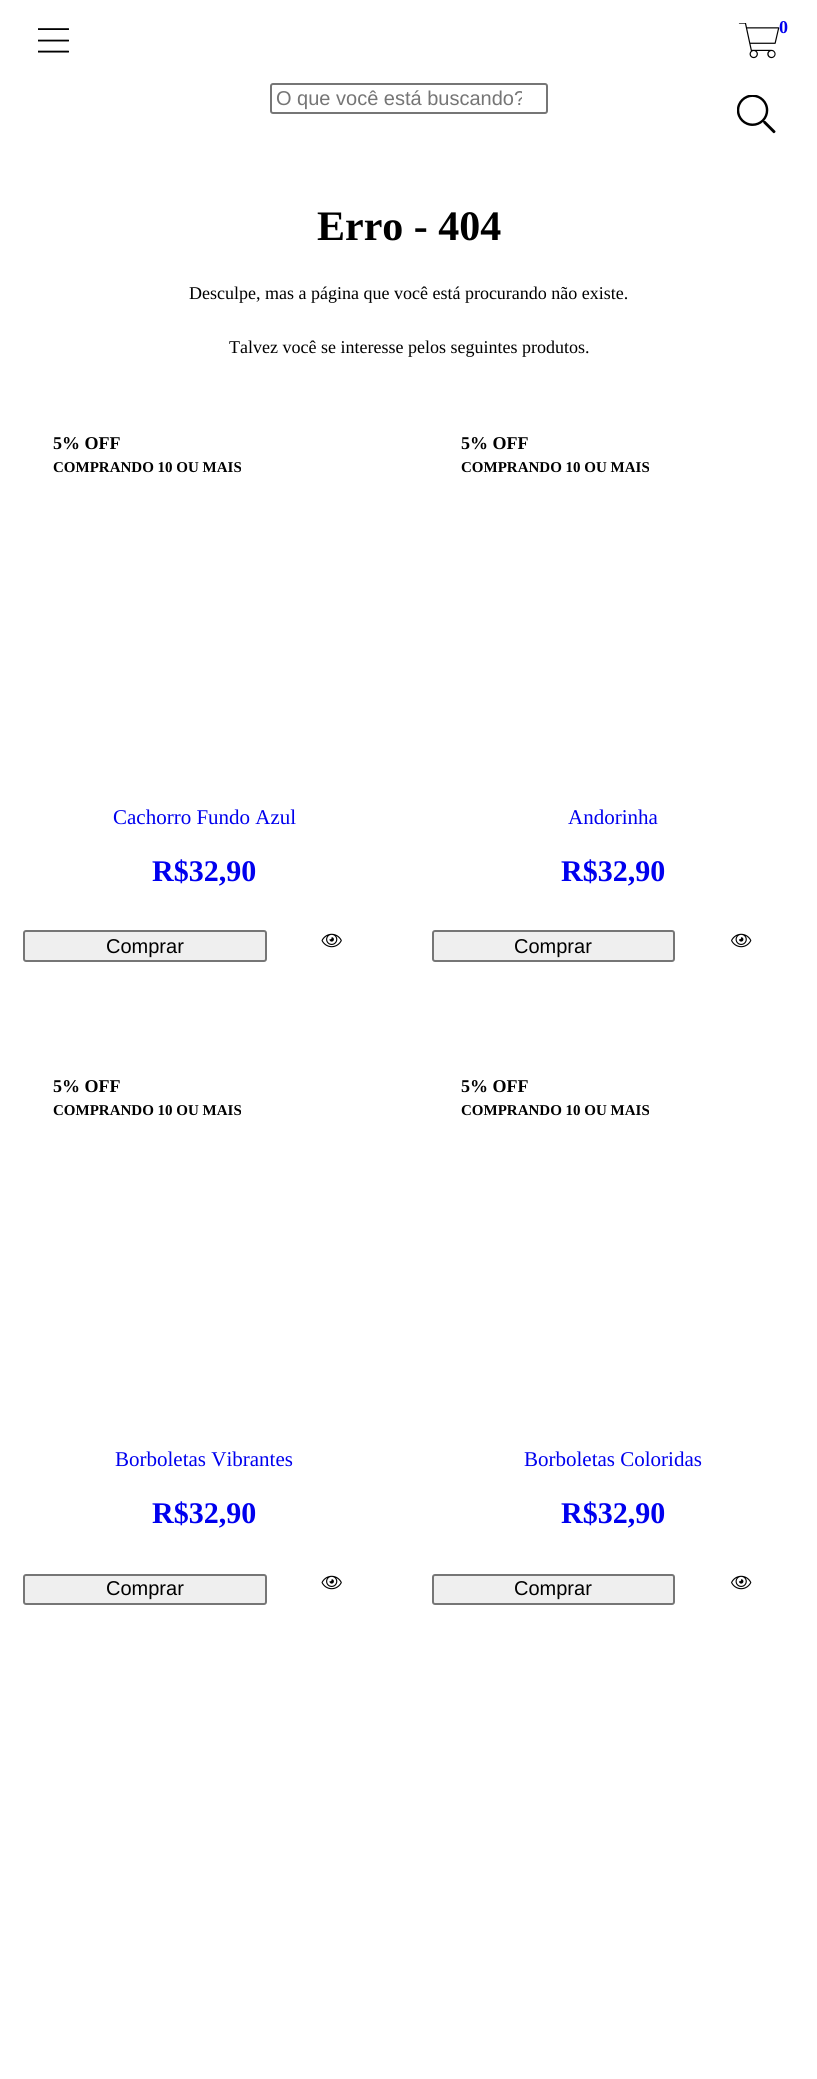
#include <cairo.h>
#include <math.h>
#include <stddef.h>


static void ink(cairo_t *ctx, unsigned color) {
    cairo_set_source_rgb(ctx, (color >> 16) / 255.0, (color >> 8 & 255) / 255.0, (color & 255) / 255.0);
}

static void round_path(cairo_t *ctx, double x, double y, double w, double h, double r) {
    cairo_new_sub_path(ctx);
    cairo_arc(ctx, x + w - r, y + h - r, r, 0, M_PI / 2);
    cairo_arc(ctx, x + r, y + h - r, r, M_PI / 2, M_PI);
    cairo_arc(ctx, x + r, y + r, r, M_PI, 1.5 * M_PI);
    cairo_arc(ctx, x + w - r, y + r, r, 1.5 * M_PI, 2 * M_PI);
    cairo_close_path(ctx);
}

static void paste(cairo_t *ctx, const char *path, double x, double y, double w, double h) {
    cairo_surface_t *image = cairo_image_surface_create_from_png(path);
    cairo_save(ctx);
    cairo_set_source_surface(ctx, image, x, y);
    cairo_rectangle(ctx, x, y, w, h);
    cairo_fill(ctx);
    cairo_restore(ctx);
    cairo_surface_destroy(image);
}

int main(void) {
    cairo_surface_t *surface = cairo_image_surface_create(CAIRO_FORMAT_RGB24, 817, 2079);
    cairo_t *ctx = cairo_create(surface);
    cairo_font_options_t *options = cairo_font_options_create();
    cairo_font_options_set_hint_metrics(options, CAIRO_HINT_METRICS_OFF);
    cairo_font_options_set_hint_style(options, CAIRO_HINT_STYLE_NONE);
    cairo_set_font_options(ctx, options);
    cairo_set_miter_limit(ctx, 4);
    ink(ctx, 0xFFFFFF);
    cairo_paint(ctx);
    paste(ctx, "media/1.png", 38, 28, 31, 25);
    paste(ctx, "media/2.png", 738, 23, 42, 36);
    cairo_select_font_face(ctx, "Liberation Serif", CAIRO_FONT_SLANT_NORMAL, CAIRO_FONT_WEIGHT_BOLD);
    cairo_set_font_size(ctx, 18);
    ink(ctx, 0x0000EE);
    cairo_move_to(ctx, 779, 33);
    cairo_show_text(ctx, "0");
    round_path(ctx, 271, 84, 276, 29, 2);
    ink(ctx, 0x767676);
    cairo_stroke(ctx);
    cairo_save(ctx);
    cairo_rectangle(ctx, 276, 87, 246, 23);
    cairo_clip(ctx);
    cairo_select_font_face(ctx, "Liberation Sans", CAIRO_FONT_SLANT_NORMAL, CAIRO_FONT_WEIGHT_NORMAL);
    cairo_set_font_size(ctx, 20);
    ink(ctx, 0x757575);
    cairo_move_to(ctx, 276, 105);
    cairo_show_text(ctx, "O que você está buscando?");
    cairo_restore(ctx);
    paste(ctx, "media/3.png", 737, 95, 39, 39);
    cairo_set_font_size(ctx, 42);
    ink(ctx, 0x000000);
    cairo_move_to(ctx, 317, 240);
    cairo_show_text(ctx, "Erro - 404");
    cairo_select_font_face(ctx, "Liberation Serif", CAIRO_FONT_SLANT_NORMAL, CAIRO_FONT_WEIGHT_NORMAL);
    cairo_set_font_size(ctx, 18);
    cairo_move_to(ctx, 189, 299);
    cairo_show_text(ctx, "Desculpe, mas a página que você está procurando não existe.");
    cairo_move_to(ctx, 229, 353);
    cairo_show_text(ctx, "Talvez você se interesse pelos seguintes produtos.");
    cairo_select_font_face(ctx, "Liberation Serif", CAIRO_FONT_SLANT_NORMAL, CAIRO_FONT_WEIGHT_BOLD);
    cairo_move_to(ctx, 53, 449);
    cairo_show_text(ctx, "5% OFF");
    cairo_set_font_size(ctx, 15);
    cairo_move_to(ctx, 53, 472);
    cairo_show_text(ctx, "COMPRANDO 10 OU MAIS");
    cairo_select_font_face(ctx, "Liberation Serif", CAIRO_FONT_SLANT_NORMAL, CAIRO_FONT_WEIGHT_NORMAL);
    cairo_set_font_size(ctx, 21);
    ink(ctx, 0x0000EE);
    cairo_move_to(ctx, 113, 824);
    cairo_show_text(ctx, "Cachorro Fundo Azul");
    cairo_select_font_face(ctx, "Liberation Serif", CAIRO_FONT_SLANT_NORMAL, CAIRO_FONT_WEIGHT_BOLD);
    cairo_set_font_size(ctx, 30);
    cairo_move_to(ctx, 152, 881);
    cairo_show_text(ctx, "R$32,90");
    ink(ctx, 0xEFEFEF);
    round_path(ctx, 24, 931, 242, 30, 2);
    cairo_fill_preserve(ctx);
    ink(ctx, 0x767676);
    cairo_stroke(ctx);
    cairo_select_font_face(ctx, "Liberation Sans", CAIRO_FONT_SLANT_NORMAL, CAIRO_FONT_WEIGHT_NORMAL);
    cairo_set_font_size(ctx, 20);
    ink(ctx, 0x000000);
    cairo_move_to(ctx, 106, 953);
    cairo_show_text(ctx, "Comprar");
    paste(ctx, "media/4.png", 321, 933, 21, 15);
    cairo_select_font_face(ctx, "Liberation Serif", CAIRO_FONT_SLANT_NORMAL, CAIRO_FONT_WEIGHT_BOLD);
    cairo_set_font_size(ctx, 18);
    cairo_move_to(ctx, 461, 449);
    cairo_show_text(ctx, "5% OFF");
    cairo_set_font_size(ctx, 15);
    cairo_move_to(ctx, 461, 472);
    cairo_show_text(ctx, "COMPRANDO 10 OU MAIS");
    cairo_select_font_face(ctx, "Liberation Serif", CAIRO_FONT_SLANT_NORMAL, CAIRO_FONT_WEIGHT_NORMAL);
    cairo_set_font_size(ctx, 21);
    ink(ctx, 0x0000EE);
    cairo_move_to(ctx, 568, 824);
    cairo_show_text(ctx, "Andorinha");
    cairo_select_font_face(ctx, "Liberation Serif", CAIRO_FONT_SLANT_NORMAL, CAIRO_FONT_WEIGHT_BOLD);
    cairo_set_font_size(ctx, 30);
    cairo_move_to(ctx, 561, 881);
    cairo_show_text(ctx, "R$32,90");
    ink(ctx, 0xEFEFEF);
    round_path(ctx, 433, 931, 241, 30, 2);
    cairo_fill_preserve(ctx);
    ink(ctx, 0x767676);
    cairo_stroke(ctx);
    cairo_select_font_face(ctx, "Liberation Sans", CAIRO_FONT_SLANT_NORMAL, CAIRO_FONT_WEIGHT_NORMAL);
    cairo_set_font_size(ctx, 20);
    ink(ctx, 0x000000);
    cairo_move_to(ctx, 514, 953);
    cairo_show_text(ctx, "Comprar");
    paste(ctx, "media/5.png", 731, 933, 21, 15);
    cairo_select_font_face(ctx, "Liberation Serif", CAIRO_FONT_SLANT_NORMAL, CAIRO_FONT_WEIGHT_BOLD);
    cairo_set_font_size(ctx, 18);
    cairo_move_to(ctx, 53, 1092);
    cairo_show_text(ctx, "5% OFF");
    cairo_set_font_size(ctx, 15);
    cairo_move_to(ctx, 53, 1115);
    cairo_show_text(ctx, "COMPRANDO 10 OU MAIS");
    cairo_select_font_face(ctx, "Liberation Serif", CAIRO_FONT_SLANT_NORMAL, CAIRO_FONT_WEIGHT_NORMAL);
    cairo_set_font_size(ctx, 21);
    ink(ctx, 0x0000EE);
    cairo_move_to(ctx, 115, 1466);
    cairo_show_text(ctx, "Borboletas Vibrantes");
    cairo_select_font_face(ctx, "Liberation Serif", CAIRO_FONT_SLANT_NORMAL, CAIRO_FONT_WEIGHT_BOLD);
    cairo_set_font_size(ctx, 30);
    cairo_move_to(ctx, 152, 1523);
    cairo_show_text(ctx, "R$32,90");
    ink(ctx, 0xEFEFEF);
    round_path(ctx, 24, 1575, 242, 29, 2);
    cairo_fill_preserve(ctx);
    ink(ctx, 0x767676);
    cairo_stroke(ctx);
    cairo_select_font_face(ctx, "Liberation Sans", CAIRO_FONT_SLANT_NORMAL, CAIRO_FONT_WEIGHT_NORMAL);
    cairo_set_font_size(ctx, 20);
    ink(ctx, 0x000000);
    cairo_move_to(ctx, 106, 1595);
    cairo_show_text(ctx, "Comprar");
    paste(ctx, "media/4.png", 321, 1575, 21, 15);
    cairo_select_font_face(ctx, "Liberation Serif", CAIRO_FONT_SLANT_NORMAL, CAIRO_FONT_WEIGHT_BOLD);
    cairo_set_font_size(ctx, 18);
    cairo_move_to(ctx, 461, 1092);
    cairo_show_text(ctx, "5% OFF");
    cairo_set_font_size(ctx, 15);
    cairo_move_to(ctx, 461, 1115);
    cairo_show_text(ctx, "COMPRANDO 10 OU MAIS");
    cairo_select_font_face(ctx, "Liberation Serif", CAIRO_FONT_SLANT_NORMAL, CAIRO_FONT_WEIGHT_NORMAL);
    cairo_set_font_size(ctx, 21);
    ink(ctx, 0x0000EE);
    cairo_move_to(ctx, 524, 1466);
    cairo_show_text(ctx, "Borboletas Coloridas");
    cairo_select_font_face(ctx, "Liberation Serif", CAIRO_FONT_SLANT_NORMAL, CAIRO_FONT_WEIGHT_BOLD);
    cairo_set_font_size(ctx, 30);
    cairo_move_to(ctx, 561, 1523);
    cairo_show_text(ctx, "R$32,90");
    ink(ctx, 0xEFEFEF);
    round_path(ctx, 433, 1575, 241, 29, 2);
    cairo_fill_preserve(ctx);
    ink(ctx, 0x767676);
    cairo_stroke(ctx);
    cairo_select_font_face(ctx, "Liberation Sans", CAIRO_FONT_SLANT_NORMAL, CAIRO_FONT_WEIGHT_NORMAL);
    cairo_set_font_size(ctx, 20);
    ink(ctx, 0x000000);
    cairo_move_to(ctx, 514, 1595);
    cairo_show_text(ctx, "Comprar");
    paste(ctx, "media/5.png", 731, 1575, 21, 15);
    cairo_surface_write_to_png(surface, "image.png");
    cairo_font_options_destroy(options);
    cairo_destroy(ctx);
    cairo_surface_destroy(surface);
    return 0;
}
